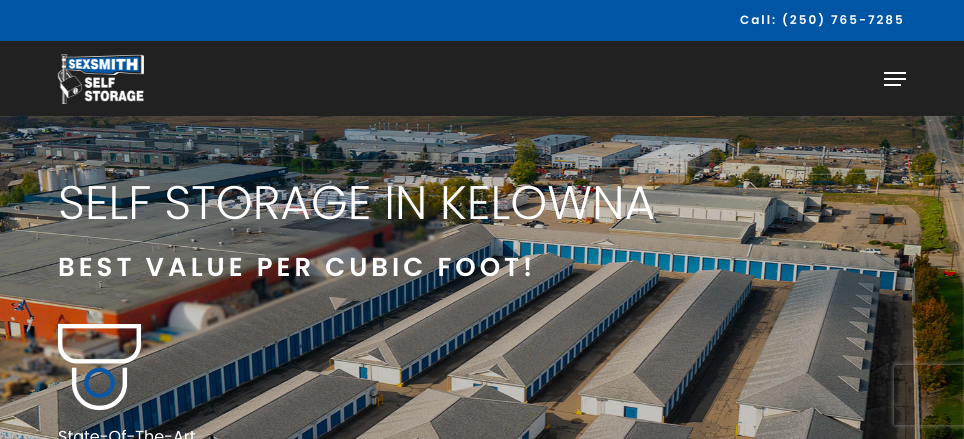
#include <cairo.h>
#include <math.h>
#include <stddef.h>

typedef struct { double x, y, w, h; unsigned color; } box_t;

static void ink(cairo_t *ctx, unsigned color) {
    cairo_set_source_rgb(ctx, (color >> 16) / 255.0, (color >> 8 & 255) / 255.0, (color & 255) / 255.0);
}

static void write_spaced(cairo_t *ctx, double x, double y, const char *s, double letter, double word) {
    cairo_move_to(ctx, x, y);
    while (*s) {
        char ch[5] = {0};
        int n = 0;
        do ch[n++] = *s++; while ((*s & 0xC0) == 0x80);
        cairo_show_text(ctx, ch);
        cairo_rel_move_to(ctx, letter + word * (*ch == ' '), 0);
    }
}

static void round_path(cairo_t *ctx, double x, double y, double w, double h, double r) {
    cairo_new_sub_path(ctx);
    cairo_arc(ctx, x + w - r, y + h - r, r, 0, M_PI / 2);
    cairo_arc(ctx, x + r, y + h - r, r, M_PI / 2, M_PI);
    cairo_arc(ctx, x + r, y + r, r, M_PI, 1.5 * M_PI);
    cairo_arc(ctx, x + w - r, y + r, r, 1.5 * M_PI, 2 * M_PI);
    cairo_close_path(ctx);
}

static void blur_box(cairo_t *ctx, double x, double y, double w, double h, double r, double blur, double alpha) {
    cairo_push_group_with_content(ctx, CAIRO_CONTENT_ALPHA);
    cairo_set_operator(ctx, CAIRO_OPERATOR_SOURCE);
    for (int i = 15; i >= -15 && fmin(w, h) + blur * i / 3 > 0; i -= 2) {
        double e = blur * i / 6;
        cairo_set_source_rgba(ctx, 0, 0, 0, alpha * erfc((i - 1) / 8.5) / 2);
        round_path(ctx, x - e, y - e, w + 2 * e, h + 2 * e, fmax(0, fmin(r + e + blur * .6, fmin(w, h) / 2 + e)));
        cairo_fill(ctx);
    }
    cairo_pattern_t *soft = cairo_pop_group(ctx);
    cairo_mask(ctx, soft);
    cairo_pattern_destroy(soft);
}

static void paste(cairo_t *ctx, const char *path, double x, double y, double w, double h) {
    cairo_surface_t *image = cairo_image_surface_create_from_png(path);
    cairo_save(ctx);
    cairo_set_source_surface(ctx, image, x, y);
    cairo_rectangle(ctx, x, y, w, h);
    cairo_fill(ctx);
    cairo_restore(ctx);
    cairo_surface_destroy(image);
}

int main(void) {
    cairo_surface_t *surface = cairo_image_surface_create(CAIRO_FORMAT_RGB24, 964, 439);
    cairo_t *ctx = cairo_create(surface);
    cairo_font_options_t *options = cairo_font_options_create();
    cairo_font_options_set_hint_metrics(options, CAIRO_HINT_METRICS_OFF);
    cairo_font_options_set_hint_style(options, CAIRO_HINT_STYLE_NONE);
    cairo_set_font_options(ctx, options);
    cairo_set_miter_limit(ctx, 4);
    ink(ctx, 0xFFFFFF);
    cairo_paint(ctx);
    ink(ctx, 0x0056A5);
    cairo_rectangle(ctx, 0, 0, 964, 41);
    cairo_fill(ctx);
    cairo_select_font_face(ctx, "Poppins SemiBold", CAIRO_FONT_SLANT_NORMAL, CAIRO_FONT_WEIGHT_NORMAL);
    cairo_set_font_size(ctx, 12);
    ink(ctx, 0xFFFFFF);
    write_spaced(ctx, 740, 24, "Call: (250) 765-7285", 2, 0);
    ink(ctx, 0x212121);
    cairo_rectangle(ctx, 0, 41, 964, 75);
    cairo_fill(ctx);
    paste(ctx, "media/1.png", 57, 54, 87, 50);
    {
        static const box_t items[] = {
            {884, 72, 22, 2, 0xFFFFFF},
            {884, 84, 17, 2, 0xFFFFFF},
            {884, 78, 22, 2, 0xFFFFFF},
        };
        for (size_t i = 0; i < sizeof items / sizeof *items; i++) {
            ink(ctx, items[i].color);
            cairo_rectangle(ctx, items[i].x, items[i].y, items[i].w, items[i].h);
            cairo_fill(ctx);
        }
    }
    paste(ctx, "media/2.png", 0, 116, 964, 323);
    cairo_select_font_face(ctx, "Poppins Light", CAIRO_FONT_SLANT_NORMAL, CAIRO_FONT_WEIGHT_NORMAL);
    cairo_set_font_size(ctx, 47);
    cairo_move_to(ctx, 58, 219);
    cairo_show_text(ctx, "SELF STORAGE IN KELOWNA");
    cairo_select_font_face(ctx, "Poppins SemiBold", CAIRO_FONT_SLANT_NORMAL, CAIRO_FONT_WEIGHT_NORMAL);
    cairo_set_font_size(ctx, 26);
    write_spaced(ctx, 58, 276, "BEST VALUE PER CUBIC FOOT!", 4, 0);
    paste(ctx, "media/3.png", 58, 324, 83, 86);
    cairo_select_font_face(ctx, "Poppins", CAIRO_FONT_SLANT_NORMAL, CAIRO_FONT_WEIGHT_NORMAL);
    cairo_set_font_size(ctx, 16);
    cairo_move_to(ctx, 58, 442);
    cairo_show_text(ctx, "State-Of-The-Art");
    cairo_save(ctx);
    cairo_set_fill_rule(ctx, CAIRO_FILL_RULE_EVEN_ODD);
    cairo_new_path(ctx);
    cairo_move_to(ctx, 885, 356);
    cairo_line_to(ctx, 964, 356);
    cairo_line_to(ctx, 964, 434);
    cairo_line_to(ctx, 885, 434);
    cairo_close_path(ctx);
    cairo_move_to(ctx, 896, 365);
    cairo_line_to(ctx, 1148, 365);
    cairo_curve_to(ctx, 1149, 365, 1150, 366, 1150, 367);
    cairo_line_to(ctx, 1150, 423);
    cairo_curve_to(ctx, 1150, 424, 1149, 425, 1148, 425);
    cairo_line_to(ctx, 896, 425);
    cairo_curve_to(ctx, 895, 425, 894, 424, 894, 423);
    cairo_line_to(ctx, 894, 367);
    cairo_curve_to(ctx, 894, 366, 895, 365, 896, 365);
    cairo_close_path(ctx);
    cairo_clip(ctx);
    ink(ctx, 0x808080);
    blur_box(ctx, 894, 365, 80, 60, 2, 2.5, 1);
    cairo_restore(ctx);
    cairo_surface_write_to_png(surface, "image.png");
    cairo_font_options_destroy(options);
    cairo_destroy(ctx);
    cairo_surface_destroy(surface);
    return 0;
}
